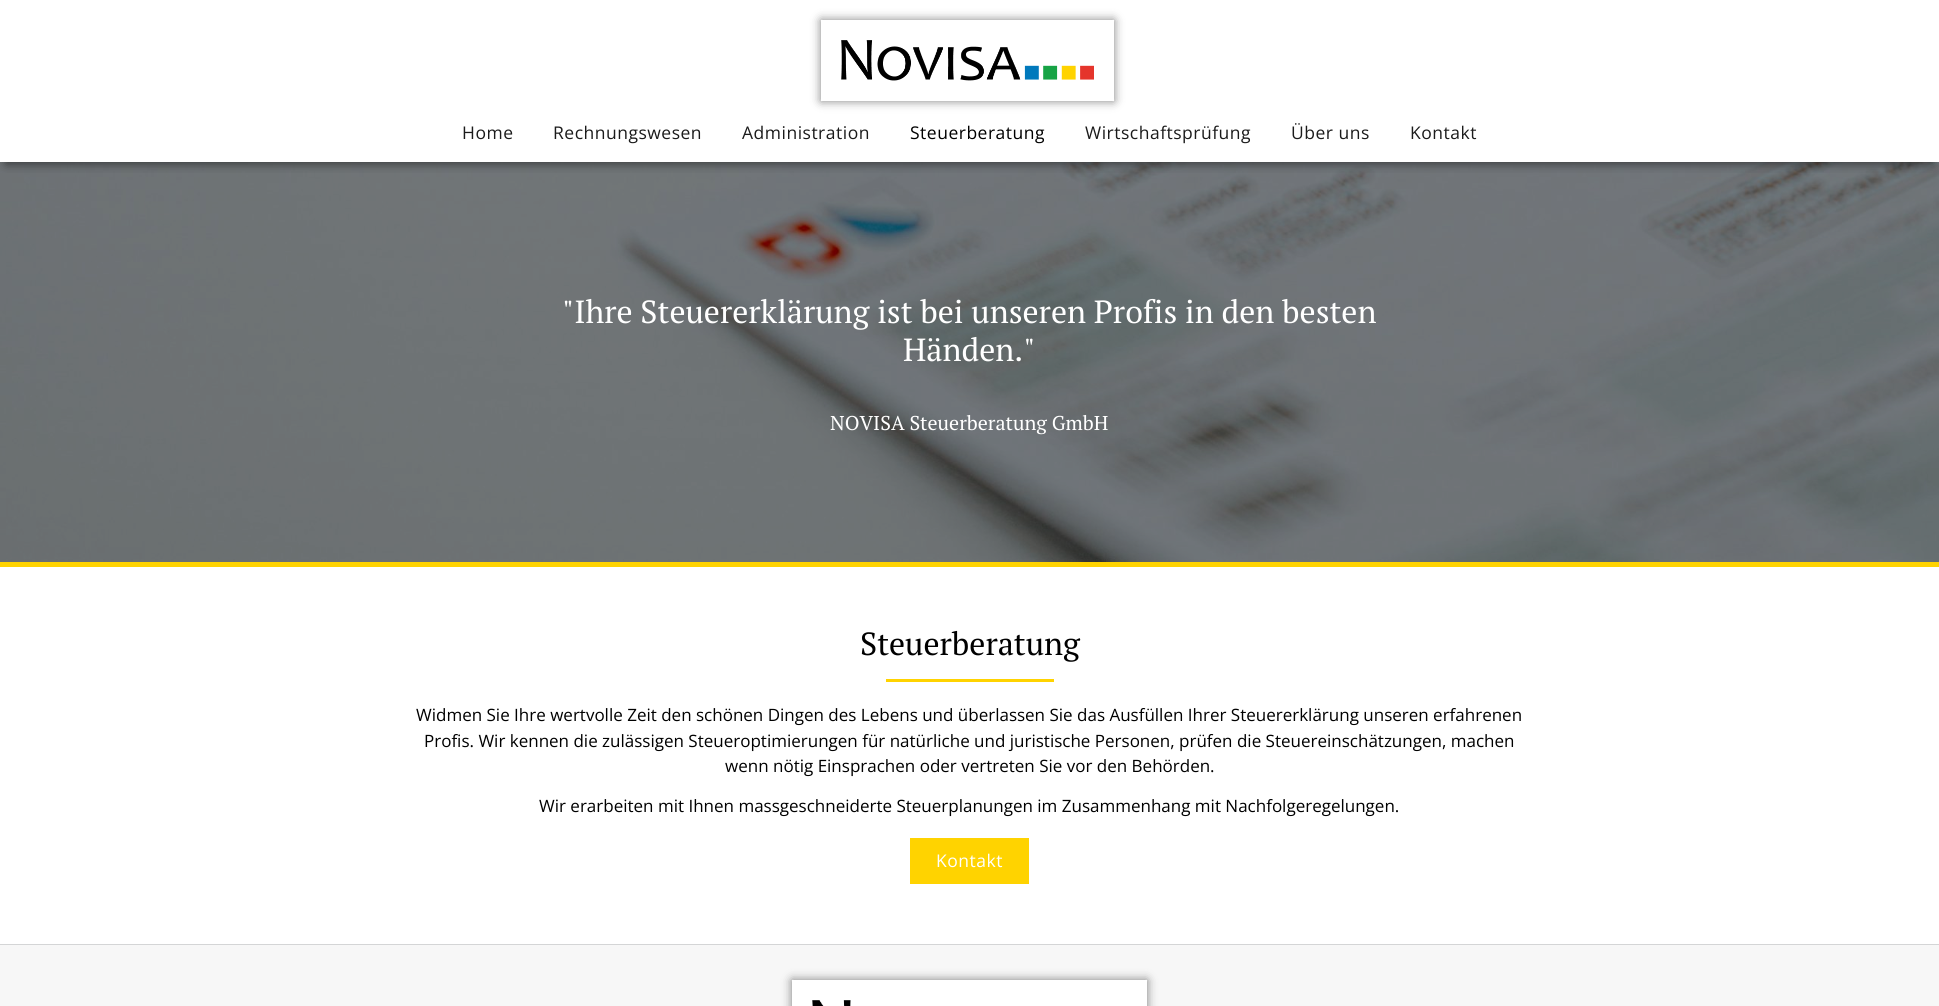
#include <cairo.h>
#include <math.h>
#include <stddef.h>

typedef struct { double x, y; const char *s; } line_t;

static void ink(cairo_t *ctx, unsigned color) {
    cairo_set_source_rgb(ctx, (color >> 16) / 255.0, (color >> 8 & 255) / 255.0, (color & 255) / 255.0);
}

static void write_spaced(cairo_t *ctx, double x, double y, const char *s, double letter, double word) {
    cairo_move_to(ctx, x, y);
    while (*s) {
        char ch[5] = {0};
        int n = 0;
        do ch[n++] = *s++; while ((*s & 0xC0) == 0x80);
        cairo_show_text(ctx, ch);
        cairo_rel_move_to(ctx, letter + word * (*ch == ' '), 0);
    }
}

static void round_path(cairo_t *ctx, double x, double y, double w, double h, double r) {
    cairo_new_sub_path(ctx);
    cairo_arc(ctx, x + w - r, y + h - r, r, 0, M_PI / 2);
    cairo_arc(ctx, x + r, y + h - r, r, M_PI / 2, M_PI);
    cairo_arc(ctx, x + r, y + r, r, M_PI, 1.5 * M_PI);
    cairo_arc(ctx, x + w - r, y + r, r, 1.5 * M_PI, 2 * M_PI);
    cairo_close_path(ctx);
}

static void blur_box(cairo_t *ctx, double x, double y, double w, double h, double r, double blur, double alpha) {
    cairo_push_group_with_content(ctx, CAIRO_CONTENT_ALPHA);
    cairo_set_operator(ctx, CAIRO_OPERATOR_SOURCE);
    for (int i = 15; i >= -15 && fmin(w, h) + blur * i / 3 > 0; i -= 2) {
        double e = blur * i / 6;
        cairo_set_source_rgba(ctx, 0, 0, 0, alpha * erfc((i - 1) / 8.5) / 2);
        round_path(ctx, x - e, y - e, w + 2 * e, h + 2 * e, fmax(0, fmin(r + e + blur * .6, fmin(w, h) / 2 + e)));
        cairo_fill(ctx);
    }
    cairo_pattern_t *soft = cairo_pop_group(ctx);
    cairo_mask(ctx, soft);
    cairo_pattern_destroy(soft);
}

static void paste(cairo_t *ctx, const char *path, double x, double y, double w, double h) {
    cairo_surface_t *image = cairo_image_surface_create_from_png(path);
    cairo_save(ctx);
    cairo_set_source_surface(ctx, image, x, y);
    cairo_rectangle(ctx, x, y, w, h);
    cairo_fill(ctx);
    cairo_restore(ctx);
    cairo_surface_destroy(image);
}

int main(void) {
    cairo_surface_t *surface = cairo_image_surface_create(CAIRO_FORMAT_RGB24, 1939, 1006);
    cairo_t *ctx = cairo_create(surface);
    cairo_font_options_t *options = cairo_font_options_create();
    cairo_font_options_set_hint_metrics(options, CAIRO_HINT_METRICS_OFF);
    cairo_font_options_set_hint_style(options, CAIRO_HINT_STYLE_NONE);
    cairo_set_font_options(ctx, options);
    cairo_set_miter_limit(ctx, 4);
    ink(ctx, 0xFFFFFF);
    cairo_paint(ctx);
    cairo_save(ctx);
    cairo_set_fill_rule(ctx, CAIRO_FILL_RULE_EVEN_ODD);
    cairo_new_path(ctx);
    cairo_move_to(ctx, 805, 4);
    cairo_line_to(ctx, 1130, 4);
    cairo_line_to(ctx, 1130, 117);
    cairo_line_to(ctx, 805, 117);
    cairo_close_path(ctx);
    cairo_move_to(ctx, 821, 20);
    cairo_line_to(ctx, 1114, 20);
    cairo_line_to(ctx, 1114, 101);
    cairo_line_to(ctx, 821, 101);
    cairo_close_path(ctx);
    cairo_clip(ctx);
    ink(ctx, 0x000000);
    blur_box(ctx, 821, 20, 293, 81, 0, 5, 0.5);
    cairo_restore(ctx);
    paste(ctx, "media/1.png", 841, 40, 253, 41);
    paste(ctx, "media/2.png", 0, 162, 1939, 400);
    cairo_save(ctx);
    cairo_rectangle(ctx, 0, 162, 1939, 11);
    cairo_clip(ctx);
    ink(ctx, 0x000000);
    blur_box(ctx, 6, 116, 1927, 48, 0, 5, 0.5);
    cairo_restore(ctx);
    cairo_select_font_face(ctx, "Open Sans", CAIRO_FONT_SLANT_NORMAL, CAIRO_FONT_WEIGHT_NORMAL);
    cairo_set_font_size(ctx, 17.5);
    ink(ctx, 0x1B1B1B);
    {
        static const line_t items[] = {
            {462, 139, "Home"},
            {553, 139, "Rechnungswesen"},
            {742, 139, "Administration"},
        };
        for (size_t i = 0; i < sizeof items / sizeof *items; i++) {
            write_spaced(ctx, items[i].x, items[i].y, items[i].s, 0.5, 0);
        }
    }
    ink(ctx, 0x000000);
    write_spaced(ctx, 910, 139, "Steuerberatung", 0.5, 0);
    ink(ctx, 0x1B1B1B);
    {
        static const line_t items[] = {
            {1085, 139, "Wirtschaftsprüfung"},
            {1291, 139, "Über uns"},
            {1410, 139, "Kontakt"},
        };
        for (size_t i = 0; i < sizeof items / sizeof *items; i++) {
            write_spaced(ctx, items[i].x, items[i].y, items[i].s, 0.5, 0);
        }
    }
    ink(ctx, 0xFFD300);
    cairo_rectangle(ctx, 0, 562, 1939, 5);
    cairo_fill(ctx);
    cairo_select_font_face(ctx, "PT Serif", CAIRO_FONT_SLANT_NORMAL, CAIRO_FONT_WEIGHT_NORMAL);
    cairo_set_font_size(ctx, 32);
    ink(ctx, 0xFFFFFF);
    cairo_move_to(ctx, 562, 323);
    cairo_show_text(ctx, "\"Ihre Steuererklärung ist bei unseren Profis in den besten");
    cairo_move_to(ctx, 903, 361);
    cairo_show_text(ctx, "Händen.\"");
    cairo_set_font_size(ctx, 20);
    cairo_move_to(ctx, 830, 430);
    cairo_show_text(ctx, "NOVISA Steuerberatung GmbH");
    cairo_set_font_size(ctx, 32);
    ink(ctx, 0x000000);
    cairo_move_to(ctx, 860, 655);
    cairo_show_text(ctx, "Steuerberatung");
    ink(ctx, 0xFFD300);
    cairo_rectangle(ctx, 886, 679, 168, 3);
    cairo_fill(ctx);
    cairo_select_font_face(ctx, "Open Sans", CAIRO_FONT_SLANT_NORMAL, CAIRO_FONT_WEIGHT_NORMAL);
    cairo_set_font_size(ctx, 17);
    ink(ctx, 0x000000);
    {
        static const line_t items[] = {
            {416, 721, "Widmen Sie Ihre wertvolle Zeit den schönen Dingen des Lebens und überlassen Sie das Ausfüllen Ihrer Steuererklärung unseren erfahrenen"},
            {424, 747, "Profis. Wir kennen die zulässigen Steueroptimierungen für natürliche und juristische Personen, prüfen die Steuereinschätzungen, machen"},
            {725, 772, "wenn nötig Einsprachen oder vertreten Sie vor den Behörden."},
            {539, 812, "Wir erarbeiten mit Ihnen massgeschneiderte Steuerplanungen im Zusammenhang mit Nachfolgeregelungen."},
        };
        for (size_t i = 0; i < sizeof items / sizeof *items; i++) {
            cairo_move_to(ctx, items[i].x, items[i].y);
            cairo_show_text(ctx, items[i].s);
        }
    }
    ink(ctx, 0xFFD300);
    cairo_rectangle(ctx, 910, 838, 119, 46);
    cairo_fill(ctx);
    cairo_set_font_size(ctx, 17.5);
    ink(ctx, 0xFFFFFF);
    write_spaced(ctx, 936, 867, "Kontakt", 0.5, 0);
    ink(ctx, 0xF7F7F7);
    cairo_rectangle(ctx, 0, 945, 1939, 61);
    cairo_fill(ctx);
    ink(ctx, 0xD4D5D6);
    cairo_rectangle(ctx, 0, 944, 1939, 1);
    cairo_fill(ctx);
    ink(ctx, 0x000000);
    blur_box(ctx, 792, 980, 355, 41, 0, 5, 0.5);
    ink(ctx, 0xFFFFFF);
    cairo_rectangle(ctx, 792, 980, 355, 26);
    cairo_fill(ctx);
    paste(ctx, "media/3.png", 812, 1000, 39, 6);
    cairo_surface_write_to_png(surface, "image.png");
    cairo_font_options_destroy(options);
    cairo_destroy(ctx);
    cairo_surface_destroy(surface);
    return 0;
}
